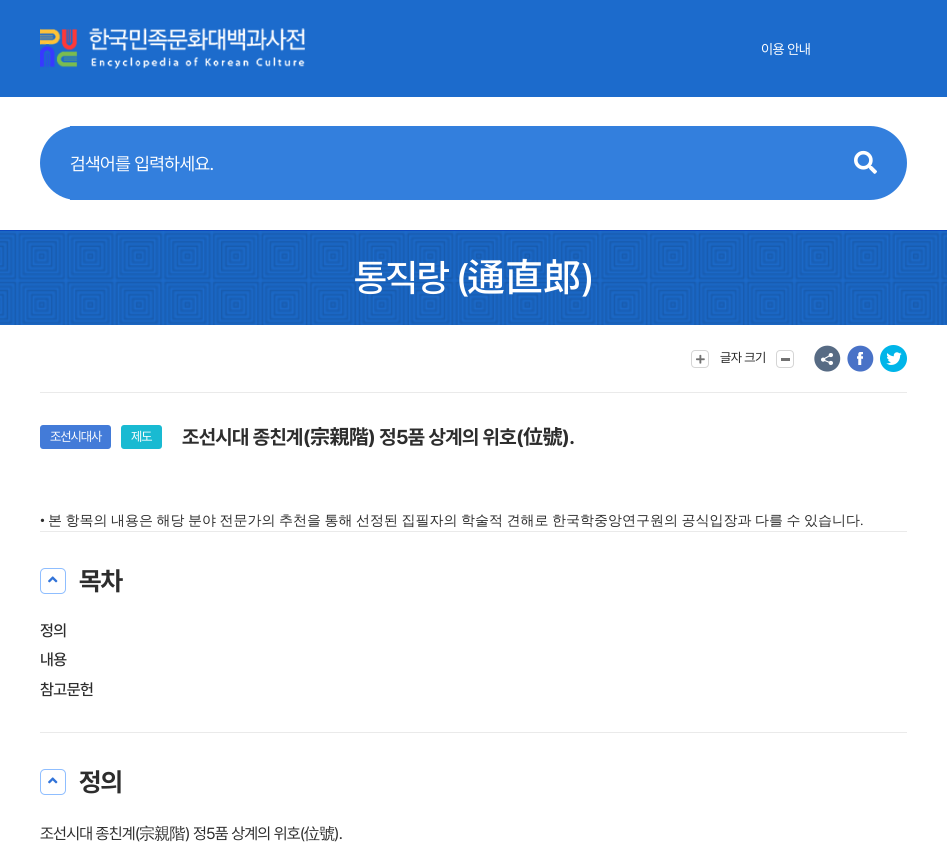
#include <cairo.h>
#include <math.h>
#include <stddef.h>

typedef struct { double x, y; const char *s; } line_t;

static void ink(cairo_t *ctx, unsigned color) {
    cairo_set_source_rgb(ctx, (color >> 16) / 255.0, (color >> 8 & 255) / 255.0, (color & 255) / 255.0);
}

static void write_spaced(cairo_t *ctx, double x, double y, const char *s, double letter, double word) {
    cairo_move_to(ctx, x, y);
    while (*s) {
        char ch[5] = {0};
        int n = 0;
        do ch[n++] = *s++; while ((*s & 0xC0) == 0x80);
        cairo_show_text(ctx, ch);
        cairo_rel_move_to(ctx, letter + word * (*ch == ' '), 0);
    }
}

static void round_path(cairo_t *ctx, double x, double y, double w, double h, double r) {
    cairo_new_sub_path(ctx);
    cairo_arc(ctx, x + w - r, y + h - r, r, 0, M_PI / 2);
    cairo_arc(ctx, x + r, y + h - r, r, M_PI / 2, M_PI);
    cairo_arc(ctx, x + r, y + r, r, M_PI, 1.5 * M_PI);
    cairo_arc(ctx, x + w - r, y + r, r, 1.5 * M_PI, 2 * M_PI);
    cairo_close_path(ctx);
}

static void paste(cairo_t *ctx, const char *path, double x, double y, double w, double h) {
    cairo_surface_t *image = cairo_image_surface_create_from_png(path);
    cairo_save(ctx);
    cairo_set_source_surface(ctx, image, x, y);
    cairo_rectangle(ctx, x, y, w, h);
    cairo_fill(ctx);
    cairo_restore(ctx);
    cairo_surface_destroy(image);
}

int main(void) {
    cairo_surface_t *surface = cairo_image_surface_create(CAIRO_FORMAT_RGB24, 947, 865);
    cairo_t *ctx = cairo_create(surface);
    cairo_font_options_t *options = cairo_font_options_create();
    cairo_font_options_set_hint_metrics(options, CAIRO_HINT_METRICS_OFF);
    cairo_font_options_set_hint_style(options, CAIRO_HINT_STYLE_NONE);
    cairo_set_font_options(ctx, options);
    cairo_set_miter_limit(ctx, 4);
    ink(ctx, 0xFFFFFF);
    cairo_paint(ctx);
    ink(ctx, 0x1C6BCC);
    cairo_rectangle(ctx, 0, 0, 947, 97);
    cairo_fill(ctx);
    cairo_select_font_face(ctx, "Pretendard", CAIRO_FONT_SLANT_NORMAL, CAIRO_FONT_WEIGHT_NORMAL);
    cairo_set_font_size(ctx, 14);
    ink(ctx, 0xFFFFFF);
    write_spaced(ctx, 761, 54, "이용 안내", -0.5, 0);
    paste(ctx, "media/1.png", 40, 28, 265, 41);
    ink(ctx, 0x0D48BE);
    cairo_rectangle(ctx, 0, 230, 947, 1);
    cairo_fill(ctx);
    ink(ctx, 0x337FDD);
    round_path(ctx, 40, 126, 867, 74, 37);
    cairo_fill(ctx);
    cairo_rectangle(ctx, 70, 126, 7, 74);
    cairo_fill(ctx);
    cairo_set_font_size(ctx, 18);
    ink(ctx, 0xFFFFFF);
    write_spaced(ctx, 70, 170, "검색어를 입력하세요.", -0.5, 0);
    paste(ctx, "media/2.png", 854, 150, 23, 24);
    paste(ctx, "media/3.png", 0, 231, 947, 94);
    cairo_select_font_face(ctx, "Pretendard Medium", CAIRO_FONT_SLANT_NORMAL, CAIRO_FONT_WEIGHT_NORMAL);
    cairo_set_font_size(ctx, 38);
    write_spaced(ctx, 354, 291, "통직랑 (", -1.5, 0);
    cairo_select_font_face(ctx, "Noto Sans CJK KR Medium", CAIRO_FONT_SLANT_NORMAL, CAIRO_FONT_WEIGHT_NORMAL);
    cairo_move_to(ctx, 467, 291);
    cairo_show_text(ctx, "通直郎");
    cairo_select_font_face(ctx, "Pretendard Medium", CAIRO_FONT_SLANT_NORMAL, CAIRO_FONT_WEIGHT_NORMAL);
    write_spaced(ctx, 581, 291, ")", -1.5, 0);
    ink(ctx, 0xEAEAEA);
    cairo_rectangle(ctx, 40, 392, 867, 1);
    cairo_fill(ctx);
    round_path(ctx, 691.5, 350.5, 17, 17, 3.5);
    ink(ctx, 0xD5D5D5);
    cairo_set_line_width(ctx, 1);
    cairo_stroke(ctx);
    paste(ctx, "media/4.png", 696, 354, 9, 10);
    cairo_select_font_face(ctx, "Pretendard", CAIRO_FONT_SLANT_NORMAL, CAIRO_FONT_WEIGHT_NORMAL);
    cairo_set_font_size(ctx, 13);
    ink(ctx, 0x262626);
    write_spaced(ctx, 720, 362, "글자 크기", -0.5, 0);
    round_path(ctx, 776.5, 350.5, 17, 17, 3.5);
    ink(ctx, 0xD5D5D5);
    cairo_stroke(ctx);
    ink(ctx, 0x717171);
    cairo_rectangle(ctx, 781, 358, 9, 3);
    cairo_fill(ctx);
    paste(ctx, "media/5.png", 814, 345, 27, 27);
    paste(ctx, "media/6.png", 847, 345, 27, 27);
    paste(ctx, "media/7.png", 880, 345, 27, 27);
    ink(ctx, 0x437BD8);
    round_path(ctx, 40, 425, 71, 24, 3);
    cairo_fill(ctx);
    ink(ctx, 0xFFFFFF);
    write_spaced(ctx, 50, 441, "조선시대사", -1, 0);
    ink(ctx, 0x19BAD2);
    round_path(ctx, 121, 425, 41, 24, 3);
    cairo_fill(ctx);
    ink(ctx, 0xFFFFFF);
    write_spaced(ctx, 131, 441, "제도", -1, 0);
    cairo_select_font_face(ctx, "Pretendard", CAIRO_FONT_SLANT_NORMAL, CAIRO_FONT_WEIGHT_BOLD);
    cairo_set_font_size(ctx, 20);
    ink(ctx, 0x2D2D2D);
    write_spaced(ctx, 182, 444, "조선시대 종친계(", -0.6, 0);
    cairo_select_font_face(ctx, "Noto Sans CJK KR", CAIRO_FONT_SLANT_NORMAL, CAIRO_FONT_WEIGHT_BOLD);
    write_spaced(ctx, 310, 444, "宗親階", -0.6, 0);
    cairo_select_font_face(ctx, "Pretendard", CAIRO_FONT_SLANT_NORMAL, CAIRO_FONT_WEIGHT_BOLD);
    write_spaced(ctx, 368, 444, ") 정5품 상계의 위호(", -0.6, 0);
    cairo_select_font_face(ctx, "Noto Sans CJK KR", CAIRO_FONT_SLANT_NORMAL, CAIRO_FONT_WEIGHT_BOLD);
    write_spaced(ctx, 523, 444, "位號", -0.6, 0);
    cairo_select_font_face(ctx, "Pretendard", CAIRO_FONT_SLANT_NORMAL, CAIRO_FONT_WEIGHT_BOLD);
    write_spaced(ctx, 562, 444, ").", -0.6, 0);
    cairo_select_font_face(ctx, "Liberation Serif", CAIRO_FONT_SLANT_NORMAL, CAIRO_FONT_WEIGHT_NORMAL);
    cairo_set_font_size(ctx, 14);
    cairo_move_to(ctx, 40, 525);
    cairo_show_text(ctx, "•");
    cairo_select_font_face(ctx, "WenQuanYi Zen Hei Medium", CAIRO_FONT_SLANT_NORMAL, CAIRO_FONT_WEIGHT_NORMAL);
    write_spaced(ctx, 48, 525, "본 항목의 내용은 해당 분야 전문가의 추천을 통해 선정된 집필자의 학술적 견해로 한국학중앙연구원의 공식입장과 다를 수 있습니다", 0, -0.7);
    cairo_select_font_face(ctx, "Liberation Serif", CAIRO_FONT_SLANT_NORMAL, CAIRO_FONT_WEIGHT_NORMAL);
    cairo_move_to(ctx, 860, 525);
    cairo_show_text(ctx, ".");
    ink(ctx, 0xEAEAEA);
    cairo_rectangle(ctx, 40, 531, 867, 1);
    cairo_fill(ctx);
    round_path(ctx, 40.5, 568.5, 25, 25, 4.5);
    ink(ctx, 0x8FBEFF);
    cairo_stroke(ctx);
    paste(ctx, "media/8.png", 48, 576, 10, 7);
    cairo_select_font_face(ctx, "Pretendard", CAIRO_FONT_SLANT_NORMAL, CAIRO_FONT_WEIGHT_BOLD);
    cairo_set_font_size(ctx, 26);
    ink(ctx, 0x2D2D2D);
    write_spaced(ctx, 79, 590, "목차", -1, 0);
    cairo_select_font_face(ctx, "Pretendard Medium", CAIRO_FONT_SLANT_NORMAL, CAIRO_FONT_WEIGHT_NORMAL);
    cairo_set_font_size(ctx, 16);
    {
        static const line_t items[] = {
            {40, 636, "정의"},
            {40, 665, "내용"},
            {40, 695, "참고문헌"},
        };
        for (size_t i = 0; i < sizeof items / sizeof *items; i++) {
            write_spaced(ctx, items[i].x, items[i].y, items[i].s, -0.5, 0);
        }
    }
    ink(ctx, 0xEAEAEA);
    cairo_rectangle(ctx, 40, 732, 867, 1);
    cairo_fill(ctx);
    round_path(ctx, 40.5, 769.5, 25, 25, 4.5);
    ink(ctx, 0x8FBEFF);
    cairo_stroke(ctx);
    paste(ctx, "media/8.png", 48, 777, 10, 7);
    cairo_select_font_face(ctx, "Pretendard", CAIRO_FONT_SLANT_NORMAL, CAIRO_FONT_WEIGHT_BOLD);
    cairo_set_font_size(ctx, 26);
    ink(ctx, 0x2D2D2D);
    write_spaced(ctx, 79, 791, "정의", -1, 0);
    cairo_select_font_face(ctx, "Pretendard", CAIRO_FONT_SLANT_NORMAL, CAIRO_FONT_WEIGHT_NORMAL);
    cairo_set_font_size(ctx, 16);
    write_spaced(ctx, 40, 839, "조선시대 종친계(", -0.75, 0);
    cairo_select_font_face(ctx, "WenQuanYi Zen Hei Medium", CAIRO_FONT_SLANT_NORMAL, CAIRO_FONT_WEIGHT_NORMAL);
    write_spaced(ctx, 139, 839, "宗親階", -0.75, 0);
    cairo_select_font_face(ctx, "Pretendard", CAIRO_FONT_SLANT_NORMAL, CAIRO_FONT_WEIGHT_NORMAL);
    write_spaced(ctx, 185, 839, ") 정5품 상계의 위호(", -0.75, 0);
    cairo_select_font_face(ctx, "WenQuanYi Zen Hei Medium", CAIRO_FONT_SLANT_NORMAL, CAIRO_FONT_WEIGHT_NORMAL);
    write_spaced(ctx, 304, 839, "位號", -0.75, 0);
    cairo_select_font_face(ctx, "Pretendard", CAIRO_FONT_SLANT_NORMAL, CAIRO_FONT_WEIGHT_NORMAL);
    write_spaced(ctx, 334, 839, ").", -0.75, 0);
    cairo_surface_write_to_png(surface, "image.png");
    cairo_font_options_destroy(options);
    cairo_destroy(ctx);
    cairo_surface_destroy(surface);
    return 0;
}
